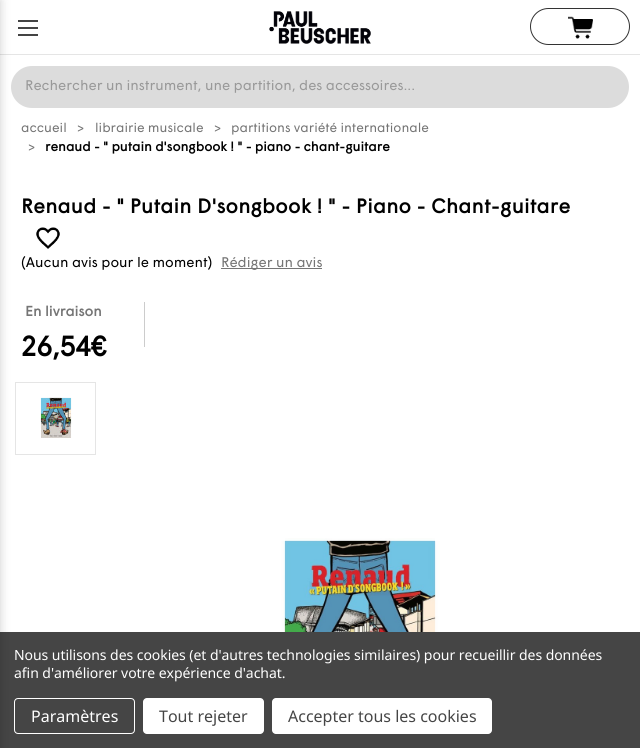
#include <cairo.h>
#include <math.h>
#include <stddef.h>

typedef struct { double x, y; const char *s; } line_t;
typedef struct { double x, y, w, h; unsigned color; } box_t;

static void ink(cairo_t *ctx, unsigned color) {
    cairo_set_source_rgb(ctx, (color >> 16) / 255.0, (color >> 8 & 255) / 255.0, (color & 255) / 255.0);
}

static void write_spaced(cairo_t *ctx, double x, double y, const char *s, double letter, double word) {
    cairo_move_to(ctx, x, y);
    while (*s) {
        char ch[5] = {0};
        int n = 0;
        do ch[n++] = *s++; while ((*s & 0xC0) == 0x80);
        cairo_show_text(ctx, ch);
        cairo_rel_move_to(ctx, letter + word * (*ch == ' '), 0);
    }
}

static void round_path(cairo_t *ctx, double x, double y, double w, double h, double r) {
    cairo_new_sub_path(ctx);
    cairo_arc(ctx, x + w - r, y + h - r, r, 0, M_PI / 2);
    cairo_arc(ctx, x + r, y + h - r, r, M_PI / 2, M_PI);
    cairo_arc(ctx, x + r, y + r, r, M_PI, 1.5 * M_PI);
    cairo_arc(ctx, x + w - r, y + r, r, 1.5 * M_PI, 2 * M_PI);
    cairo_close_path(ctx);
}

static void blur_box(cairo_t *ctx, double x, double y, double w, double h, double r, double blur, double alpha) {
    cairo_push_group_with_content(ctx, CAIRO_CONTENT_ALPHA);
    cairo_set_operator(ctx, CAIRO_OPERATOR_SOURCE);
    for (int i = 15; i >= -15 && fmin(w, h) + blur * i / 3 > 0; i -= 2) {
        double e = blur * i / 6;
        cairo_set_source_rgba(ctx, 0, 0, 0, alpha * erfc((i - 1) / 8.5) / 2);
        round_path(ctx, x - e, y - e, w + 2 * e, h + 2 * e, fmax(0, fmin(r + e + blur * .6, fmin(w, h) / 2 + e)));
        cairo_fill(ctx);
    }
    cairo_pattern_t *soft = cairo_pop_group(ctx);
    cairo_mask(ctx, soft);
    cairo_pattern_destroy(soft);
}

static void paste(cairo_t *ctx, const char *path, double x, double y, double w, double h) {
    cairo_surface_t *image = cairo_image_surface_create_from_png(path);
    cairo_save(ctx);
    cairo_set_source_surface(ctx, image, x, y);
    cairo_rectangle(ctx, x, y, w, h);
    cairo_fill(ctx);
    cairo_restore(ctx);
    cairo_surface_destroy(image);
}

int main(void) {
    cairo_surface_t *surface = cairo_image_surface_create(CAIRO_FORMAT_RGB24, 640, 748);
    cairo_t *ctx = cairo_create(surface);
    cairo_font_options_t *options = cairo_font_options_create();
    cairo_font_options_set_hint_metrics(options, CAIRO_HINT_METRICS_OFF);
    cairo_font_options_set_hint_style(options, CAIRO_HINT_STYLE_NONE);
    cairo_set_font_options(ctx, options);
    cairo_set_miter_limit(ctx, 4);
    ink(ctx, 0xFFFFFF);
    cairo_paint(ctx);
    ink(ctx, 0xE5E5E5);
    cairo_rectangle(ctx, 0, 54, 640, 1);
    cairo_fill(ctx);
    ink(ctx, 0xDCDCDC);
    round_path(ctx, 11, 66, 618, 42, 21);
    cairo_fill(ctx);
    cairo_rectangle(ctx, 15.5, 382.5, 80, 72);
    ink(ctx, 0xE5E5E5);
    cairo_set_line_width(ctx, 1);
    cairo_stroke(ctx);
    ink(ctx, 0x454545);
    cairo_rectangle(ctx, 0, 632, 640, 116);
    cairo_fill(ctx);
    round_path(ctx, 14.5, 698.5, 120, 35, 3.5);
    ink(ctx, 0xFFFFFF);
    cairo_stroke(ctx);
    ink(ctx, 0x000000);
    blur_box(ctx, -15, 0, 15, 748, 0, 5, 0.2);
    {
        static const box_t items[] = {
            {18, 27, 20, 2, 0x444444},
            {18, 20, 20, 2, 0x444444},
            {18, 34, 20, 2, 0x444444},
        };
        for (size_t i = 0; i < sizeof items / sizeof *items; i++) {
            ink(ctx, items[i].color);
            cairo_rectangle(ctx, items[i].x, items[i].y, items[i].w, items[i].h);
            cairo_fill(ctx);
        }
    }
    paste(ctx, "media/1.png", 269, 11, 102, 33);
    round_path(ctx, 530.5, 8.5, 99, 36, 18);
    ink(ctx, 0x333333);
    cairo_stroke(ctx);
    paste(ctx, "media/2.png", 568, 16, 25, 23);
    cairo_select_font_face(ctx, "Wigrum", CAIRO_FONT_SLANT_NORMAL, CAIRO_FONT_WEIGHT_NORMAL);
    cairo_set_font_size(ctx, 14);
    ink(ctx, 0x999999);
    cairo_move_to(ctx, 25, 90);
    cairo_show_text(ctx, "Rechercher un instrument, une partition, des accessoires...");
    cairo_set_font_size(ctx, 13);
    ink(ctx, 0x757575);
    {
        static const line_t items[] = {
            {21, 132, "accueil"},
            {77, 133, ">"},
            {95, 132, "librairie musicale"},
            {214, 133, ">"},
            {231, 132, "partitions variété internationale"},
            {28, 152, ">"},
        };
        for (size_t i = 0; i < sizeof items / sizeof *items; i++) {
            cairo_move_to(ctx, items[i].x, items[i].y);
            cairo_show_text(ctx, items[i].s);
        }
    }
    cairo_select_font_face(ctx, "Wigrum", CAIRO_FONT_SLANT_NORMAL, CAIRO_FONT_WEIGHT_BOLD);
    ink(ctx, 0x000000);
    cairo_move_to(ctx, 45, 151);
    cairo_show_text(ctx, "renaud - \" putain d'songbook ! \" - piano - chant-guitare");
    cairo_set_font_size(ctx, 20);
    write_spaced(ctx, 21, 213, "Renaud - \" Putain D'songbook ! \" - Piano - Chant-guitare", 0.25, 0);
    paste(ctx, "media/3.png", 36, 227, 24, 22);
    cairo_select_font_face(ctx, "Wigrum", CAIRO_FONT_SLANT_NORMAL, CAIRO_FONT_WEIGHT_NORMAL);
    cairo_set_font_size(ctx, 14);
    cairo_move_to(ctx, 21, 267);
    cairo_show_text(ctx, "(Aucun avis pour le moment)");
    ink(ctx, 0x757575);
    cairo_rectangle(ctx, 221, 268, 101, 1);
    cairo_fill(ctx);
    cairo_move_to(ctx, 221, 267);
    cairo_show_text(ctx, "Rédiger un avis");
    cairo_select_font_face(ctx, "Wigrum", CAIRO_FONT_SLANT_NORMAL, CAIRO_FONT_WEIGHT_BOLD);
    cairo_move_to(ctx, 25, 316);
    cairo_show_text(ctx, "En livraison");
    cairo_set_font_size(ctx, 28);
    ink(ctx, 0x000000);
    cairo_move_to(ctx, 21, 356);
    cairo_show_text(ctx, "26,54€");
    ink(ctx, 0xCCCCCC);
    cairo_rectangle(ctx, 144, 302, 1, 45);
    cairo_fill(ctx);
    paste(ctx, "media/4.png", 40, 397, 32, 41);
    paste(ctx, "media/5.png", 281, 538, 159, 94);
    cairo_select_font_face(ctx, "Noto Sans", CAIRO_FONT_SLANT_NORMAL, CAIRO_FONT_WEIGHT_NORMAL);
    cairo_set_font_size(ctx, 14);
    ink(ctx, 0xFFFFFF);
    write_spaced(ctx, 14, 660, "Nous utilisons des cookies (et d'autres technologies similaires) pour recueillir des données", -0.05, 0);
    write_spaced(ctx, 14, 678, "afin d'améliorer votre expérience d'achat.", -0.05, 0);
    cairo_set_font_size(ctx, 16);
    cairo_move_to(ctx, 31, 722);
    cairo_show_text(ctx, "Paramètres");
    round_path(ctx, 143, 698, 121, 36, 4);
    cairo_fill(ctx);
    ink(ctx, 0x454545);
    cairo_move_to(ctx, 159, 722);
    cairo_show_text(ctx, "Tout rejeter");
    ink(ctx, 0xFFFFFF);
    round_path(ctx, 272, 698, 220, 36, 4);
    cairo_fill(ctx);
    ink(ctx, 0x454545);
    cairo_move_to(ctx, 288, 722);
    cairo_show_text(ctx, "Accepter tous les cookies");
    cairo_surface_write_to_png(surface, "image.png");
    cairo_font_options_destroy(options);
    cairo_destroy(ctx);
    cairo_surface_destroy(surface);
    return 0;
}
